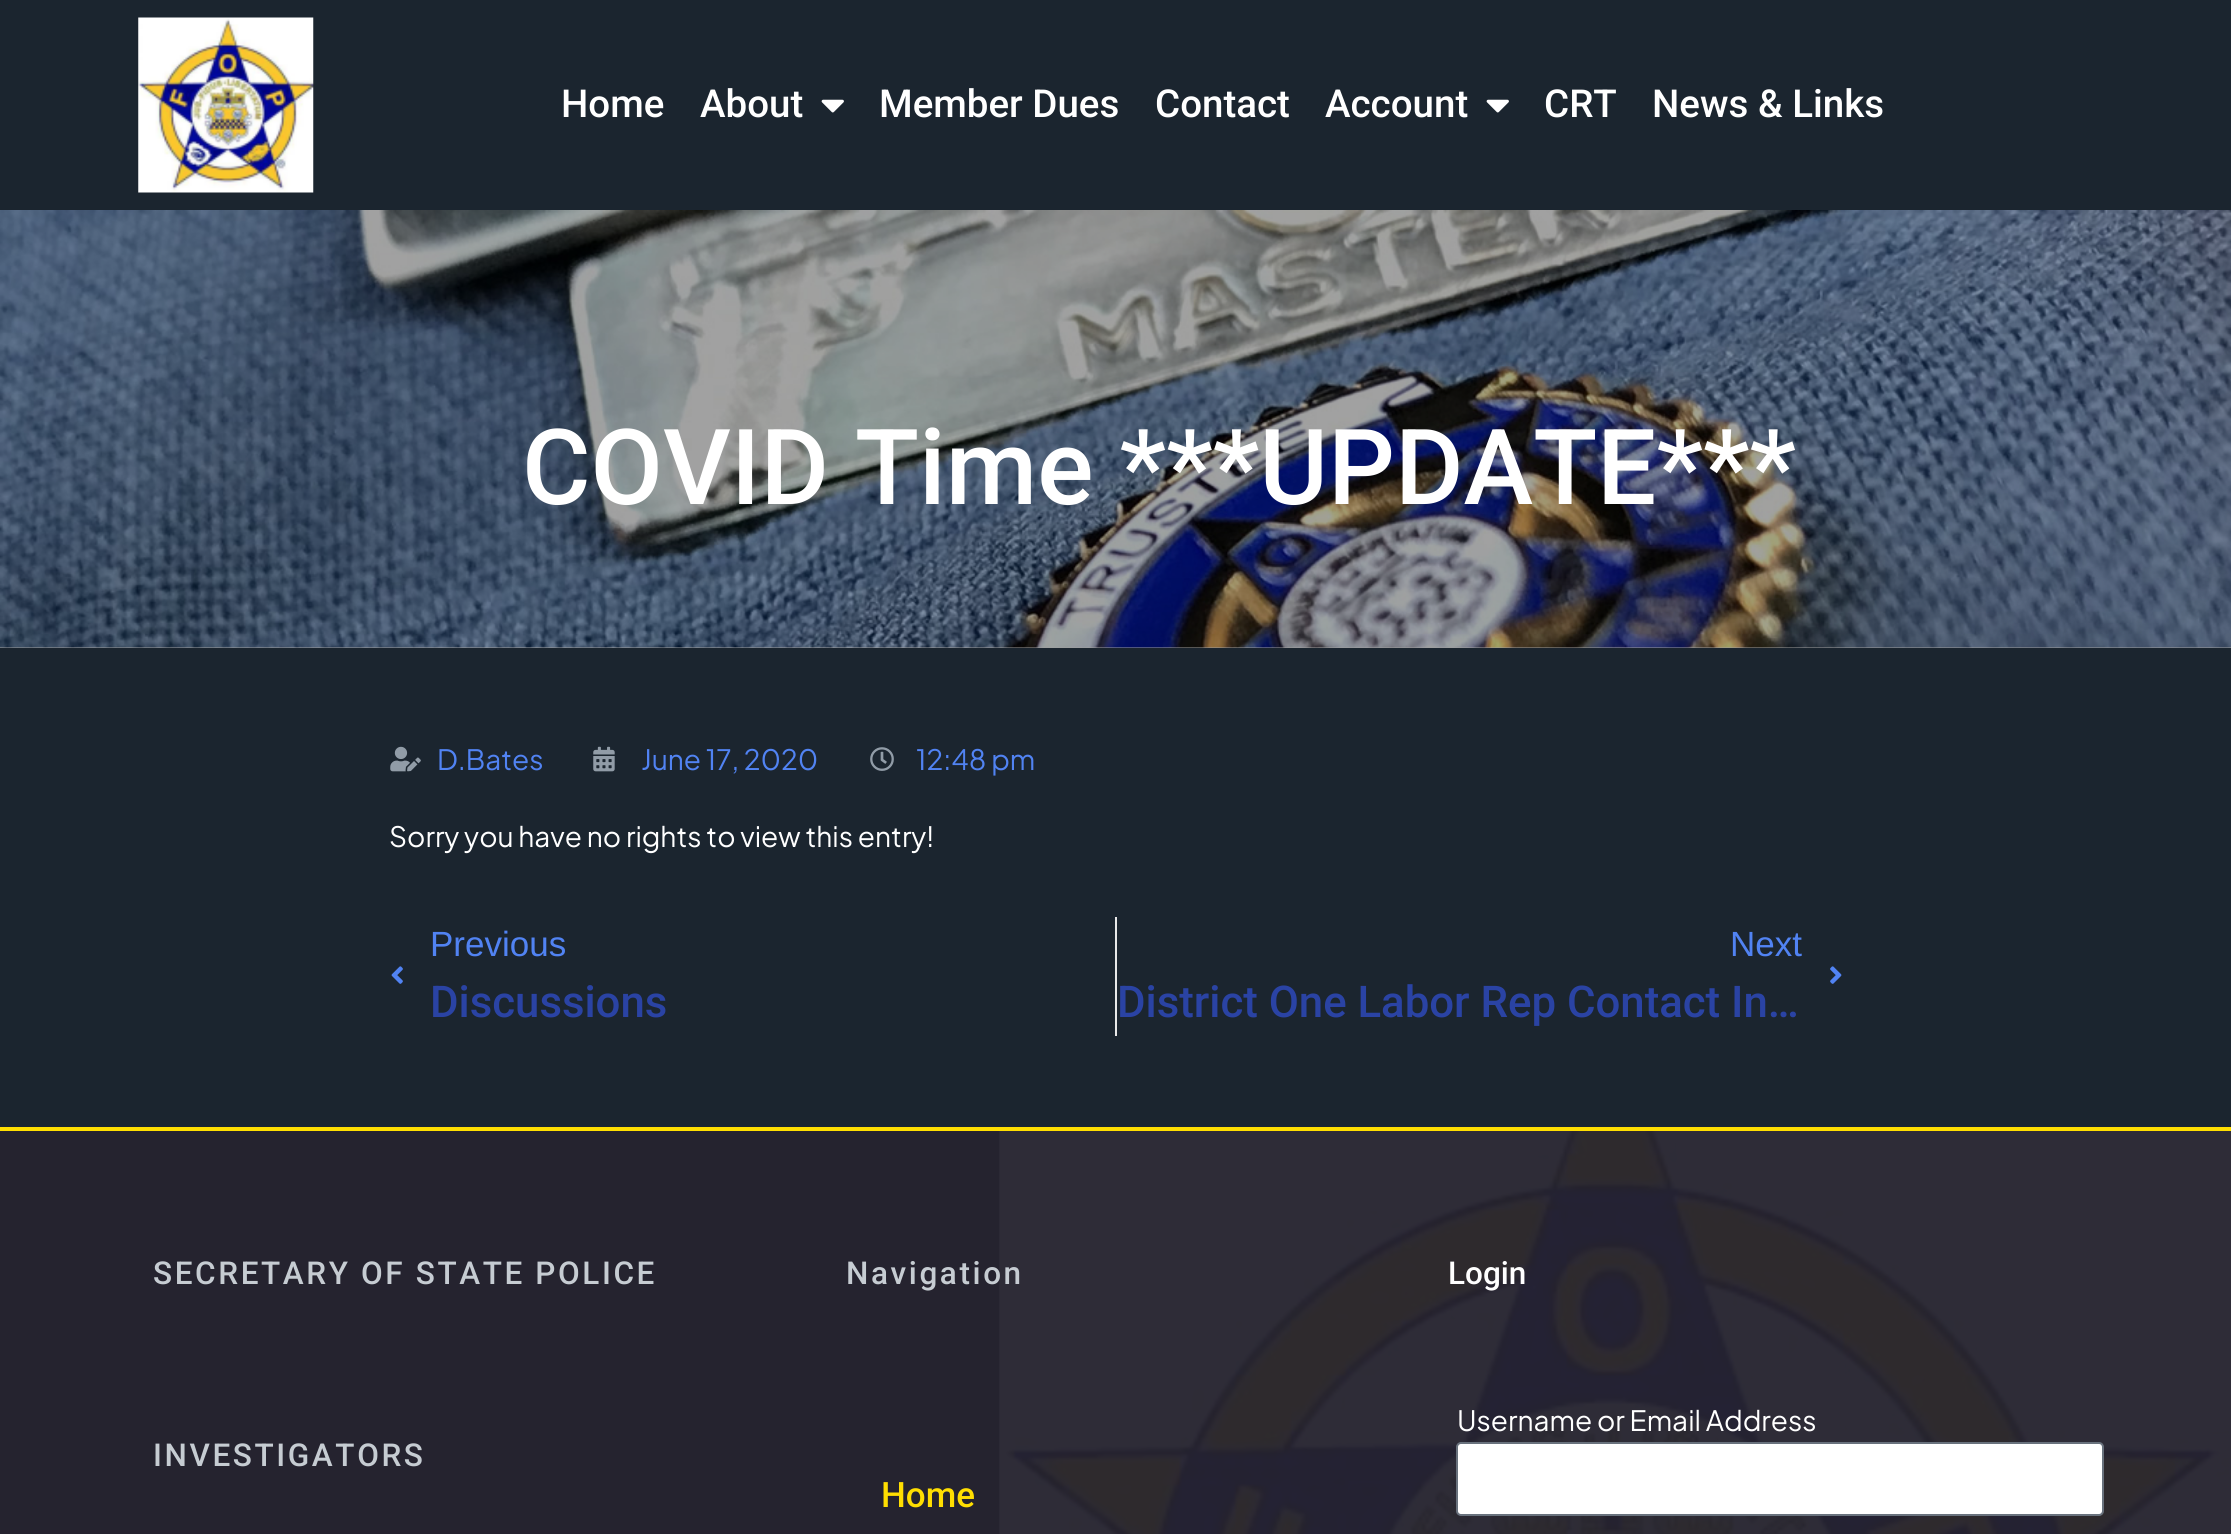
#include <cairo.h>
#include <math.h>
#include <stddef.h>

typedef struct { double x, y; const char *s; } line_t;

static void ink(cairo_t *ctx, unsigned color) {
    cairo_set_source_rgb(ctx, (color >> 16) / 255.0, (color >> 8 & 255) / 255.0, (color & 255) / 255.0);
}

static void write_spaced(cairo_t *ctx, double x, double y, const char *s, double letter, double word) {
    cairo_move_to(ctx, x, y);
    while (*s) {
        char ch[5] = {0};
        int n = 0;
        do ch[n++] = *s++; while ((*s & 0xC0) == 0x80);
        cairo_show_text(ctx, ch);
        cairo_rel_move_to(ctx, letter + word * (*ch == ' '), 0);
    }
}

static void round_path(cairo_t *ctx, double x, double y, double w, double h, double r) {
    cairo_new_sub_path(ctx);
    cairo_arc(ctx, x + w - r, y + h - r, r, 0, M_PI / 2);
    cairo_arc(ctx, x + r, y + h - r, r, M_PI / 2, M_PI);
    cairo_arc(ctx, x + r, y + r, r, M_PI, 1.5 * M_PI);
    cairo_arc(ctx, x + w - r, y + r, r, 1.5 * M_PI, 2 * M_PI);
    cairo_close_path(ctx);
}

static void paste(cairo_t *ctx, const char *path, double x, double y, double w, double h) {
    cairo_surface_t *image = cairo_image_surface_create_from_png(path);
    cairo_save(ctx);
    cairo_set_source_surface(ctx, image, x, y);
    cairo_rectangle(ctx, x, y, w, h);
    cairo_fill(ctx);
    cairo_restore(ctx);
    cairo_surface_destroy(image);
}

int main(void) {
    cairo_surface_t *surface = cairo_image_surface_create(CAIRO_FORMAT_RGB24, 2231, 1534);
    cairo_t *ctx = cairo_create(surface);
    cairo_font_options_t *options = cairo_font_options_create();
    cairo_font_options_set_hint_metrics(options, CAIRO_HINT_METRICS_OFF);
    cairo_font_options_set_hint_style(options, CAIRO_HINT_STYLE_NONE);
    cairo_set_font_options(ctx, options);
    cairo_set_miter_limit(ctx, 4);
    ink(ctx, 0x9F9F9F);
    cairo_paint(ctx);
    ink(ctx, 0x1B252F);
    cairo_rectangle(ctx, 0, 0, 2231, 210);
    cairo_fill(ctx);
    paste(ctx, "media/1.png", 138, 17, 176, 176);
    cairo_select_font_face(ctx, "Roboto Medium", CAIRO_FONT_SLANT_NORMAL, CAIRO_FONT_WEIGHT_NORMAL);
    cairo_set_font_size(ctx, 38.5);
    ink(ctx, 0xFFFFFF);
    cairo_move_to(ctx, 561, 117);
    cairo_show_text(ctx, "Home");
    cairo_move_to(ctx, 700, 117);
    cairo_show_text(ctx, "About");
    paste(ctx, "media/2.png", 821, 99, 23, 14);
    {
        static const line_t items[] = {
            {879, 117, "Member Dues"},
            {1155, 117, "Contact"},
            {1325, 117, "Account"},
        };
        for (size_t i = 0; i < sizeof items / sizeof *items; i++) {
            cairo_move_to(ctx, items[i].x, items[i].y);
            cairo_show_text(ctx, items[i].s);
        }
    }
    paste(ctx, "media/2.png", 1486, 99, 23, 14);
    cairo_move_to(ctx, 1544, 117);
    cairo_show_text(ctx, "CRT");
    cairo_move_to(ctx, 1652, 117);
    cairo_show_text(ctx, "News & Links");
    paste(ctx, "media/3.png", 0, 210, 2231, 438);
    cairo_set_font_size(ctx, 105);
    cairo_move_to(ctx, 522, 504);
    cairo_show_text(ctx, "COVID Time ***UPDATE***");
    ink(ctx, 0x1B252F);
    cairo_rectangle(ctx, 0, 648, 2231, 479);
    cairo_fill(ctx);
    paste(ctx, "media/4.png", 390, 746, 31, 26);
    cairo_select_font_face(ctx, "Plus Jakarta Sans", CAIRO_FONT_SLANT_NORMAL, CAIRO_FONT_WEIGHT_NORMAL);
    cairo_set_font_size(ctx, 28);
    ink(ctx, 0x5183F3);
    cairo_move_to(ctx, 437, 770);
    cairo_show_text(ctx, "D.Bates");
    paste(ctx, "media/5.png", 593, 746, 22, 26);
    cairo_move_to(ctx, 641, 770);
    cairo_show_text(ctx, "June 17, 2020");
    paste(ctx, "media/6.png", 870, 747, 24, 24);
    cairo_move_to(ctx, 916, 770);
    cairo_show_text(ctx, "12:48 pm");
    ink(ctx, 0xFFFFFF);
    cairo_move_to(ctx, 389, 847);
    cairo_show_text(ctx, "Sorry you have no rights to view this entry!");
    paste(ctx, "media/7.png", 391, 966, 12, 18);
    cairo_select_font_face(ctx, "Liberation Sans", CAIRO_FONT_SLANT_NORMAL, CAIRO_FONT_WEIGHT_NORMAL);
    cairo_set_font_size(ctx, 35);
    ink(ctx, 0x5183F3);
    cairo_move_to(ctx, 430, 956);
    cairo_show_text(ctx, "Previous");
    cairo_select_font_face(ctx, "Roboto Medium", CAIRO_FONT_SLANT_NORMAL, CAIRO_FONT_WEIGHT_NORMAL);
    cairo_set_font_size(ctx, 43.75);
    ink(ctx, 0x2A43A4);
    cairo_move_to(ctx, 430, 1017);
    cairo_show_text(ctx, "Discussions");
    ink(ctx, 0xE9E9E9);
    cairo_rectangle(ctx, 1115, 917, 2, 119);
    cairo_fill(ctx);
    cairo_select_font_face(ctx, "Liberation Sans", CAIRO_FONT_SLANT_NORMAL, CAIRO_FONT_WEIGHT_NORMAL);
    cairo_set_font_size(ctx, 35);
    ink(ctx, 0x5183F3);
    cairo_move_to(ctx, 1730, 956);
    cairo_show_text(ctx, "Next");
    cairo_select_font_face(ctx, "Roboto Medium", CAIRO_FONT_SLANT_NORMAL, CAIRO_FONT_WEIGHT_NORMAL);
    cairo_set_font_size(ctx, 43.75);
    ink(ctx, 0x2A43A4);
    cairo_move_to(ctx, 1117, 1017);
    cairo_show_text(ctx, "District One Labor Rep Contact In…");
    paste(ctx, "media/8.png", 1830, 966, 12, 18);
    ink(ctx, 0xFFDE01);
    cairo_rectangle(ctx, 0, 1127, 2231, 4);
    cairo_fill(ctx);
    ink(ctx, 0x25232F);
    cairo_rectangle(ctx, 0, 1131, 2231, 403);
    cairo_fill(ctx);
    paste(ctx, "media/9.png", 999, 1131, 1232, 403);
    cairo_set_font_size(ctx, 31.5);
    ink(ctx, 0xC6CCD2);
    {
        static const line_t items[] = {
            {153, 1284, "SECRETARY OF STATE POLICE"},
            {153, 1466, "INVESTIGATORS"},
            {846, 1284, "Navigation"},
        };
        for (size_t i = 0; i < sizeof items / sizeof *items; i++) {
            write_spaced(ctx, items[i].x, items[i].y, items[i].s, 2.6, 0);
        }
    }
    cairo_set_font_size(ctx, 35);
    ink(ctx, 0xFFDE01);
    cairo_move_to(ctx, 881, 1507);
    cairo_show_text(ctx, "Home");
    cairo_set_font_size(ctx, 31.5);
    ink(ctx, 0xFFFFFF);
    cairo_move_to(ctx, 1448, 1284);
    cairo_show_text(ctx, "Login");
    cairo_select_font_face(ctx, "Plus Jakarta Sans", CAIRO_FONT_SLANT_NORMAL, CAIRO_FONT_WEIGHT_NORMAL);
    cairo_set_font_size(ctx, 28);
    cairo_move_to(ctx, 1457, 1431);
    cairo_show_text(ctx, "Username or Email Address");
    round_path(ctx, 1457, 1443, 646, 72, 4);
    cairo_fill_preserve(ctx);
    ink(ctx, 0x69727D);
    cairo_stroke(ctx);
    cairo_surface_write_to_png(surface, "image.png");
    cairo_font_options_destroy(options);
    cairo_destroy(ctx);
    cairo_surface_destroy(surface);
    return 0;
}
